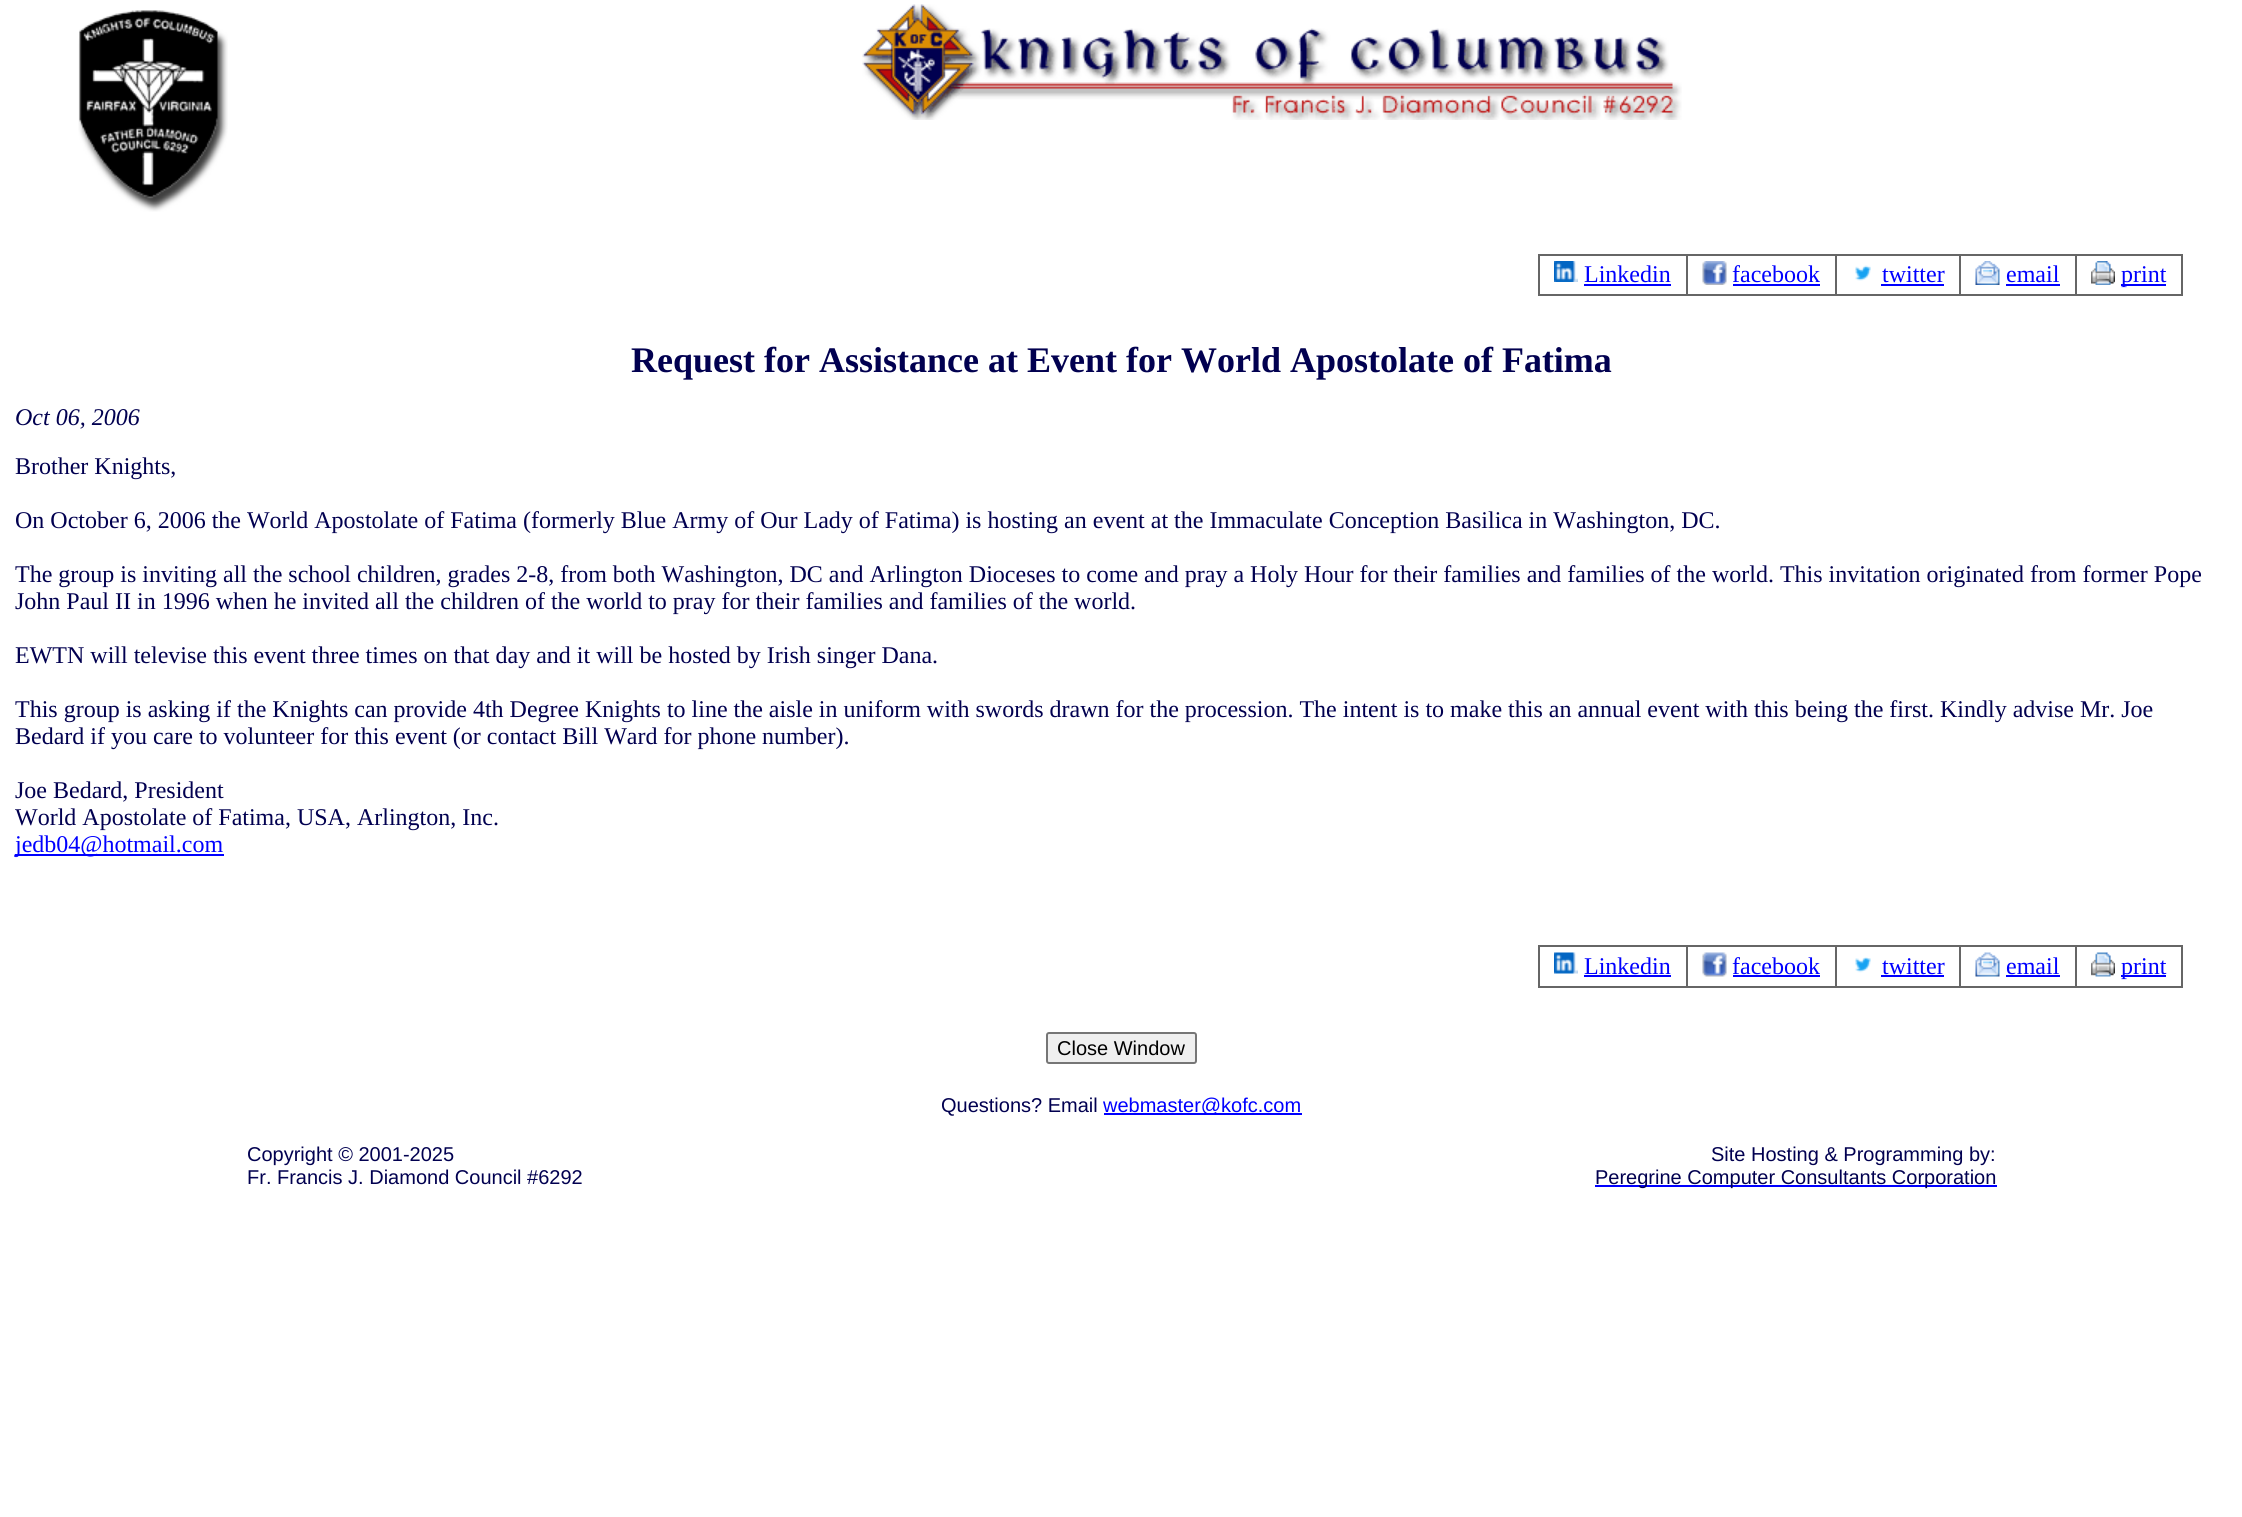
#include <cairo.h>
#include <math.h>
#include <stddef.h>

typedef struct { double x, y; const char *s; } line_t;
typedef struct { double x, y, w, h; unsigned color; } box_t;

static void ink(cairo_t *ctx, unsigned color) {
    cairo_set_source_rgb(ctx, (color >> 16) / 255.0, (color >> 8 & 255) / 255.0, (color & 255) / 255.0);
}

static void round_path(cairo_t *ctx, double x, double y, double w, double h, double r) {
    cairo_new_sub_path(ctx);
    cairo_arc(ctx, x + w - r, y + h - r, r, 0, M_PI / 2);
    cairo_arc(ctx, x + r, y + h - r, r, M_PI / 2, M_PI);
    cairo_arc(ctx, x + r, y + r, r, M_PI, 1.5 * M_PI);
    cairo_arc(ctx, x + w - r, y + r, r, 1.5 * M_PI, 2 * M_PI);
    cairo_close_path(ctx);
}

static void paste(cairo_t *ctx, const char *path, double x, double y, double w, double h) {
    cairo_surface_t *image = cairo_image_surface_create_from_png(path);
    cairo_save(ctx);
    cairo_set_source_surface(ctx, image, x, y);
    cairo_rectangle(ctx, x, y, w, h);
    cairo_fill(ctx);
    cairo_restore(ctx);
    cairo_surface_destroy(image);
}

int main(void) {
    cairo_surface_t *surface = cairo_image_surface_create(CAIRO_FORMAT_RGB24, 2242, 1517);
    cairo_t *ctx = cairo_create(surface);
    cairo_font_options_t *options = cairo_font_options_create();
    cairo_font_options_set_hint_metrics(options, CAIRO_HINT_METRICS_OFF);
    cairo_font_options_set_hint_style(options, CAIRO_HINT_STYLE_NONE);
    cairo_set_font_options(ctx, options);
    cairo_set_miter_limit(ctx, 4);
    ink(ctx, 0xFFFFFF);
    cairo_paint(ctx);
    paste(ctx, "media/1.png", 78, 10, 150, 202);
    paste(ctx, "media/2.png", 862, 4, 820, 116);
    {
        static const box_t items[] = {
            {1538, 254, 645, 2, 0x666666},
            {2181, 254, 2, 42, 0x666666},
            {1538, 294, 645, 2, 0x666666},
            {1538, 254, 2, 42, 0x666666},
        };
        for (size_t i = 0; i < sizeof items / sizeof *items; i++) {
            ink(ctx, items[i].color);
            cairo_rectangle(ctx, items[i].x, items[i].y, items[i].w, items[i].h);
            cairo_fill(ctx);
        }
    }
    paste(ctx, "media/3.png", 1554, 261, 24, 21);
    cairo_select_font_face(ctx, "Liberation Serif", CAIRO_FONT_SLANT_NORMAL, CAIRO_FONT_WEIGHT_NORMAL);
    cairo_set_font_size(ctx, 24);
    ink(ctx, 0x0000FF);
    cairo_move_to(ctx, 1584, 282);
    cairo_show_text(ctx, "Linkedin");
    cairo_rectangle(ctx, 1584, 284, 87, 2);
    cairo_fill(ctx);
    ink(ctx, 0x666666);
    cairo_rectangle(ctx, 1686, 254, 2, 42);
    cairo_fill(ctx);
    paste(ctx, "media/4.png", 1702, 261, 25, 24);
    ink(ctx, 0x0000FF);
    cairo_move_to(ctx, 1732, 282);
    cairo_show_text(ctx, "facebook");
    cairo_rectangle(ctx, 1733, 284, 87, 2);
    cairo_fill(ctx);
    ink(ctx, 0x666666);
    cairo_rectangle(ctx, 1835, 254, 2, 42);
    cairo_fill(ctx);
    paste(ctx, "media/5.png", 1855, 265, 16, 16);
    ink(ctx, 0x0000FF);
    cairo_move_to(ctx, 1882, 282);
    cairo_show_text(ctx, "twitter");
    cairo_rectangle(ctx, 1881, 284, 63, 2);
    cairo_fill(ctx);
    ink(ctx, 0x666666);
    cairo_rectangle(ctx, 1959, 254, 2, 42);
    cairo_fill(ctx);
    paste(ctx, "media/6.png", 1975, 261, 25, 24);
    ink(ctx, 0x0000FF);
    cairo_move_to(ctx, 2006, 282);
    cairo_show_text(ctx, "email");
    cairo_rectangle(ctx, 2006, 284, 54, 2);
    cairo_fill(ctx);
    ink(ctx, 0x666666);
    cairo_rectangle(ctx, 2075, 254, 2, 42);
    cairo_fill(ctx);
    paste(ctx, "media/7.png", 2091, 261, 24, 24);
    ink(ctx, 0x0000FF);
    cairo_rectangle(ctx, 2121, 284, 45, 2);
    cairo_fill(ctx);
    cairo_move_to(ctx, 2121, 282);
    cairo_show_text(ctx, "print");
    cairo_select_font_face(ctx, "Liberation Serif", CAIRO_FONT_SLANT_NORMAL, CAIRO_FONT_WEIGHT_BOLD);
    cairo_set_font_size(ctx, 36);
    ink(ctx, 0x010050);
    cairo_move_to(ctx, 631, 372);
    cairo_show_text(ctx, "Request for Assistance at Event for World Apostolate of Fatima");
    cairo_select_font_face(ctx, "Liberation Serif", CAIRO_FONT_SLANT_ITALIC, CAIRO_FONT_WEIGHT_NORMAL);
    cairo_set_font_size(ctx, 24);
    cairo_move_to(ctx, 15, 425);
    cairo_show_text(ctx, "Oct 06, 2006");
    cairo_select_font_face(ctx, "Liberation Serif", CAIRO_FONT_SLANT_NORMAL, CAIRO_FONT_WEIGHT_NORMAL);
    {
        static const line_t items[] = {
            {15, 474, "Brother Knights,"},
            {15, 528, "On October 6, 2006 the World Apostolate of Fatima (formerly Blue Army of Our Lady of Fatima) is hosting an event at the Immaculate Conception Basilica in Washington, DC."},
            {15, 582, "The group is inviting all the school children, grades 2-8, from both Washington, DC and Arlington Dioceses to come and pray a Holy Hour for their families and families of the world. This invitation originated from former Pope"},
            {15, 609, "John Paul II in 1996 when he invited all the children of the world to pray for their families and families of the world."},
            {15, 663, "EWTN will televise this event three times on that day and it will be hosted by Irish singer Dana."},
            {15, 717, "This group is asking if the Knights can provide 4th Degree Knights to line the aisle in uniform with swords drawn for the procession. The intent is to make this an annual event with this being the first. Kindly advise Mr. Joe"},
            {15, 744, "Bedard if you care to volunteer for this event (or contact Bill Ward for phone number)."},
            {15, 798, "Joe Bedard, President"},
            {15, 825, "World Apostolate of Fatima, USA, Arlington, Inc."},
        };
        for (size_t i = 0; i < sizeof items / sizeof *items; i++) {
            cairo_move_to(ctx, items[i].x, items[i].y);
            cairo_show_text(ctx, items[i].s);
        }
    }
    ink(ctx, 0x0000FF);
    cairo_rectangle(ctx, 15, 854, 209, 2);
    cairo_fill(ctx);
    cairo_move_to(ctx, 15, 852);
    cairo_show_text(ctx, "jedb04@hotmail.com");
    {
        static const box_t items[] = {
            {1538, 945, 645, 2, 0x666666},
            {2181, 945, 2, 42, 0x666666},
            {1538, 986, 645, 2, 0x666666},
            {1538, 945, 2, 42, 0x666666},
        };
        for (size_t i = 0; i < sizeof items / sizeof *items; i++) {
            ink(ctx, items[i].color);
            cairo_rectangle(ctx, items[i].x, items[i].y, items[i].w, items[i].h);
            cairo_fill(ctx);
        }
    }
    paste(ctx, "media/8.png", 1554, 952, 24, 22);
    ink(ctx, 0x0000FF);
    cairo_move_to(ctx, 1584, 974);
    cairo_show_text(ctx, "Linkedin");
    cairo_rectangle(ctx, 1584, 975, 87, 2);
    cairo_fill(ctx);
    ink(ctx, 0x666666);
    cairo_rectangle(ctx, 1686, 945, 2, 42);
    cairo_fill(ctx);
    paste(ctx, "media/9.png", 1702, 952, 25, 25);
    ink(ctx, 0x0000FF);
    cairo_move_to(ctx, 1732, 974);
    cairo_show_text(ctx, "facebook");
    cairo_rectangle(ctx, 1733, 975, 87, 2);
    cairo_fill(ctx);
    ink(ctx, 0x666666);
    cairo_rectangle(ctx, 1835, 945, 2, 42);
    cairo_fill(ctx);
    paste(ctx, "media/10.png", 1855, 957, 16, 16);
    ink(ctx, 0x0000FF);
    cairo_move_to(ctx, 1882, 974);
    cairo_show_text(ctx, "twitter");
    cairo_rectangle(ctx, 1881, 975, 63, 2);
    cairo_fill(ctx);
    ink(ctx, 0x666666);
    cairo_rectangle(ctx, 1959, 945, 2, 42);
    cairo_fill(ctx);
    paste(ctx, "media/11.png", 1975, 952, 25, 25);
    ink(ctx, 0x0000FF);
    cairo_move_to(ctx, 2006, 974);
    cairo_show_text(ctx, "email");
    cairo_rectangle(ctx, 2006, 975, 54, 2);
    cairo_fill(ctx);
    ink(ctx, 0x666666);
    cairo_rectangle(ctx, 2075, 945, 2, 42);
    cairo_fill(ctx);
    paste(ctx, "media/12.png", 2091, 952, 24, 25);
    ink(ctx, 0x0000FF);
    cairo_rectangle(ctx, 2121, 975, 45, 2);
    cairo_fill(ctx);
    cairo_move_to(ctx, 2121, 974);
    cairo_show_text(ctx, "print");
    ink(ctx, 0xEFEFEF);
    round_path(ctx, 1047, 1033, 149, 30, 2);
    cairo_fill_preserve(ctx);
    ink(ctx, 0x767676);
    cairo_stroke(ctx);
    cairo_select_font_face(ctx, "Liberation Sans", CAIRO_FONT_SLANT_NORMAL, CAIRO_FONT_WEIGHT_NORMAL);
    cairo_set_font_size(ctx, 20);
    ink(ctx, 0x000000);
    cairo_move_to(ctx, 1057, 1055);
    cairo_show_text(ctx, "Close Window");
    ink(ctx, 0x010050);
    cairo_move_to(ctx, 941, 1112);
    cairo_show_text(ctx, "Questions? Email");
    ink(ctx, 0x0000FF);
    cairo_rectangle(ctx, 1104, 1113, 198, 2);
    cairo_fill(ctx);
    cairo_move_to(ctx, 1103, 1112);
    cairo_show_text(ctx, "webmaster@kofc.com");
    ink(ctx, 0x010050);
    {
        static const line_t items[] = {
            {247, 1161, "Copyright © 2001-2025"},
            {247, 1184, "Fr. Francis J. Diamond Council #6292"},
            {1711, 1161, "Site Hosting & Programming by:"},
        };
        for (size_t i = 0; i < sizeof items / sizeof *items; i++) {
            cairo_move_to(ctx, items[i].x, items[i].y);
            cairo_show_text(ctx, items[i].s);
        }
    }
    ink(ctx, 0x0000FF);
    cairo_rectangle(ctx, 1595, 1185, 402, 2);
    cairo_fill(ctx);
    ink(ctx, 0x010050);
    cairo_move_to(ctx, 1595, 1184);
    cairo_show_text(ctx, "Peregrine Computer Consultants Corporation");
    cairo_surface_write_to_png(surface, "image.png");
    cairo_font_options_destroy(options);
    cairo_destroy(ctx);
    cairo_surface_destroy(surface);
    return 0;
}
